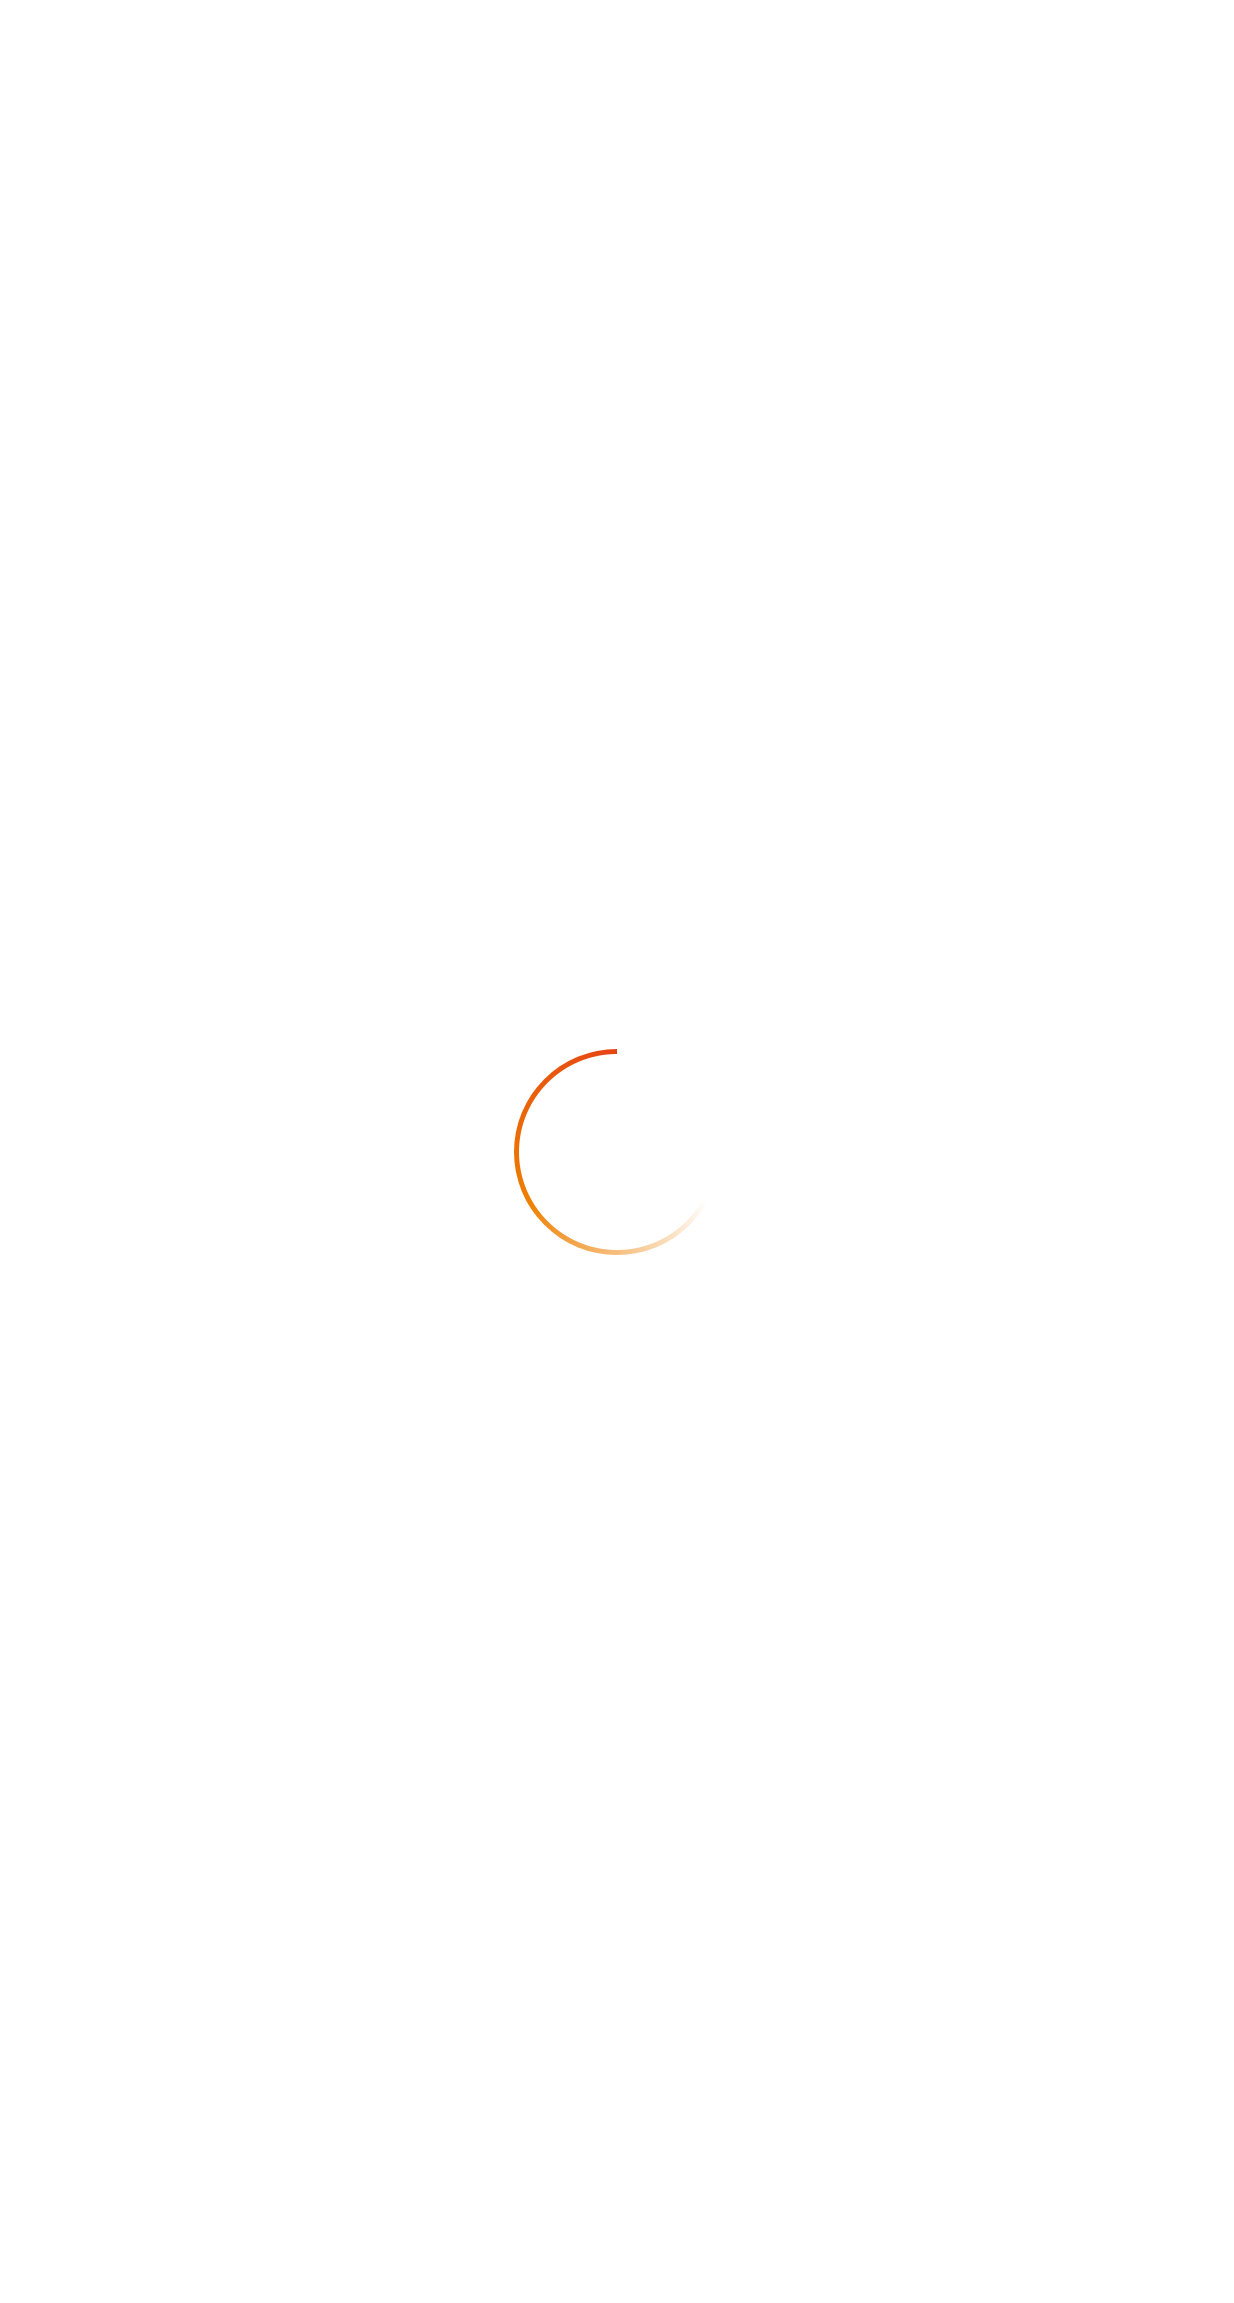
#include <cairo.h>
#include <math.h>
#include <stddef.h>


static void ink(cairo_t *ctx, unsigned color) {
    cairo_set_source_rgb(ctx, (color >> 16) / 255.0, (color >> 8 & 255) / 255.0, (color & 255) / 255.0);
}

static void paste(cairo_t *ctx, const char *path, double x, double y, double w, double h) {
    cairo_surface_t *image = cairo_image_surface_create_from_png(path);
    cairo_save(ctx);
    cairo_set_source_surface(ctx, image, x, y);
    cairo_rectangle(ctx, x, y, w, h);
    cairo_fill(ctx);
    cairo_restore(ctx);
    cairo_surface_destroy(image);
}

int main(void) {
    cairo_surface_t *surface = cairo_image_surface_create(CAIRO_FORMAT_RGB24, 1234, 2303);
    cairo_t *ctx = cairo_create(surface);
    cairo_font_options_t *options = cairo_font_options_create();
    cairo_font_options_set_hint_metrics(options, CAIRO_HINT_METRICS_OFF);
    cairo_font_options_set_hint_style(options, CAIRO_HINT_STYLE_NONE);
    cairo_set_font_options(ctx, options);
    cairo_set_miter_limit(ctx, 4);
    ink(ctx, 0xFFFFFF);
    cairo_paint(ctx);
    paste(ctx, "media/1.png", 514, 1049, 191, 206);
    ink(ctx, 0xFFFFFF);
    cairo_arc(ctx, 617, 1152, 98, 0, 2 * M_PI);
    cairo_fill(ctx);
    cairo_surface_write_to_png(surface, "image.png");
    cairo_font_options_destroy(options);
    cairo_destroy(ctx);
    cairo_surface_destroy(surface);
    return 0;
}
